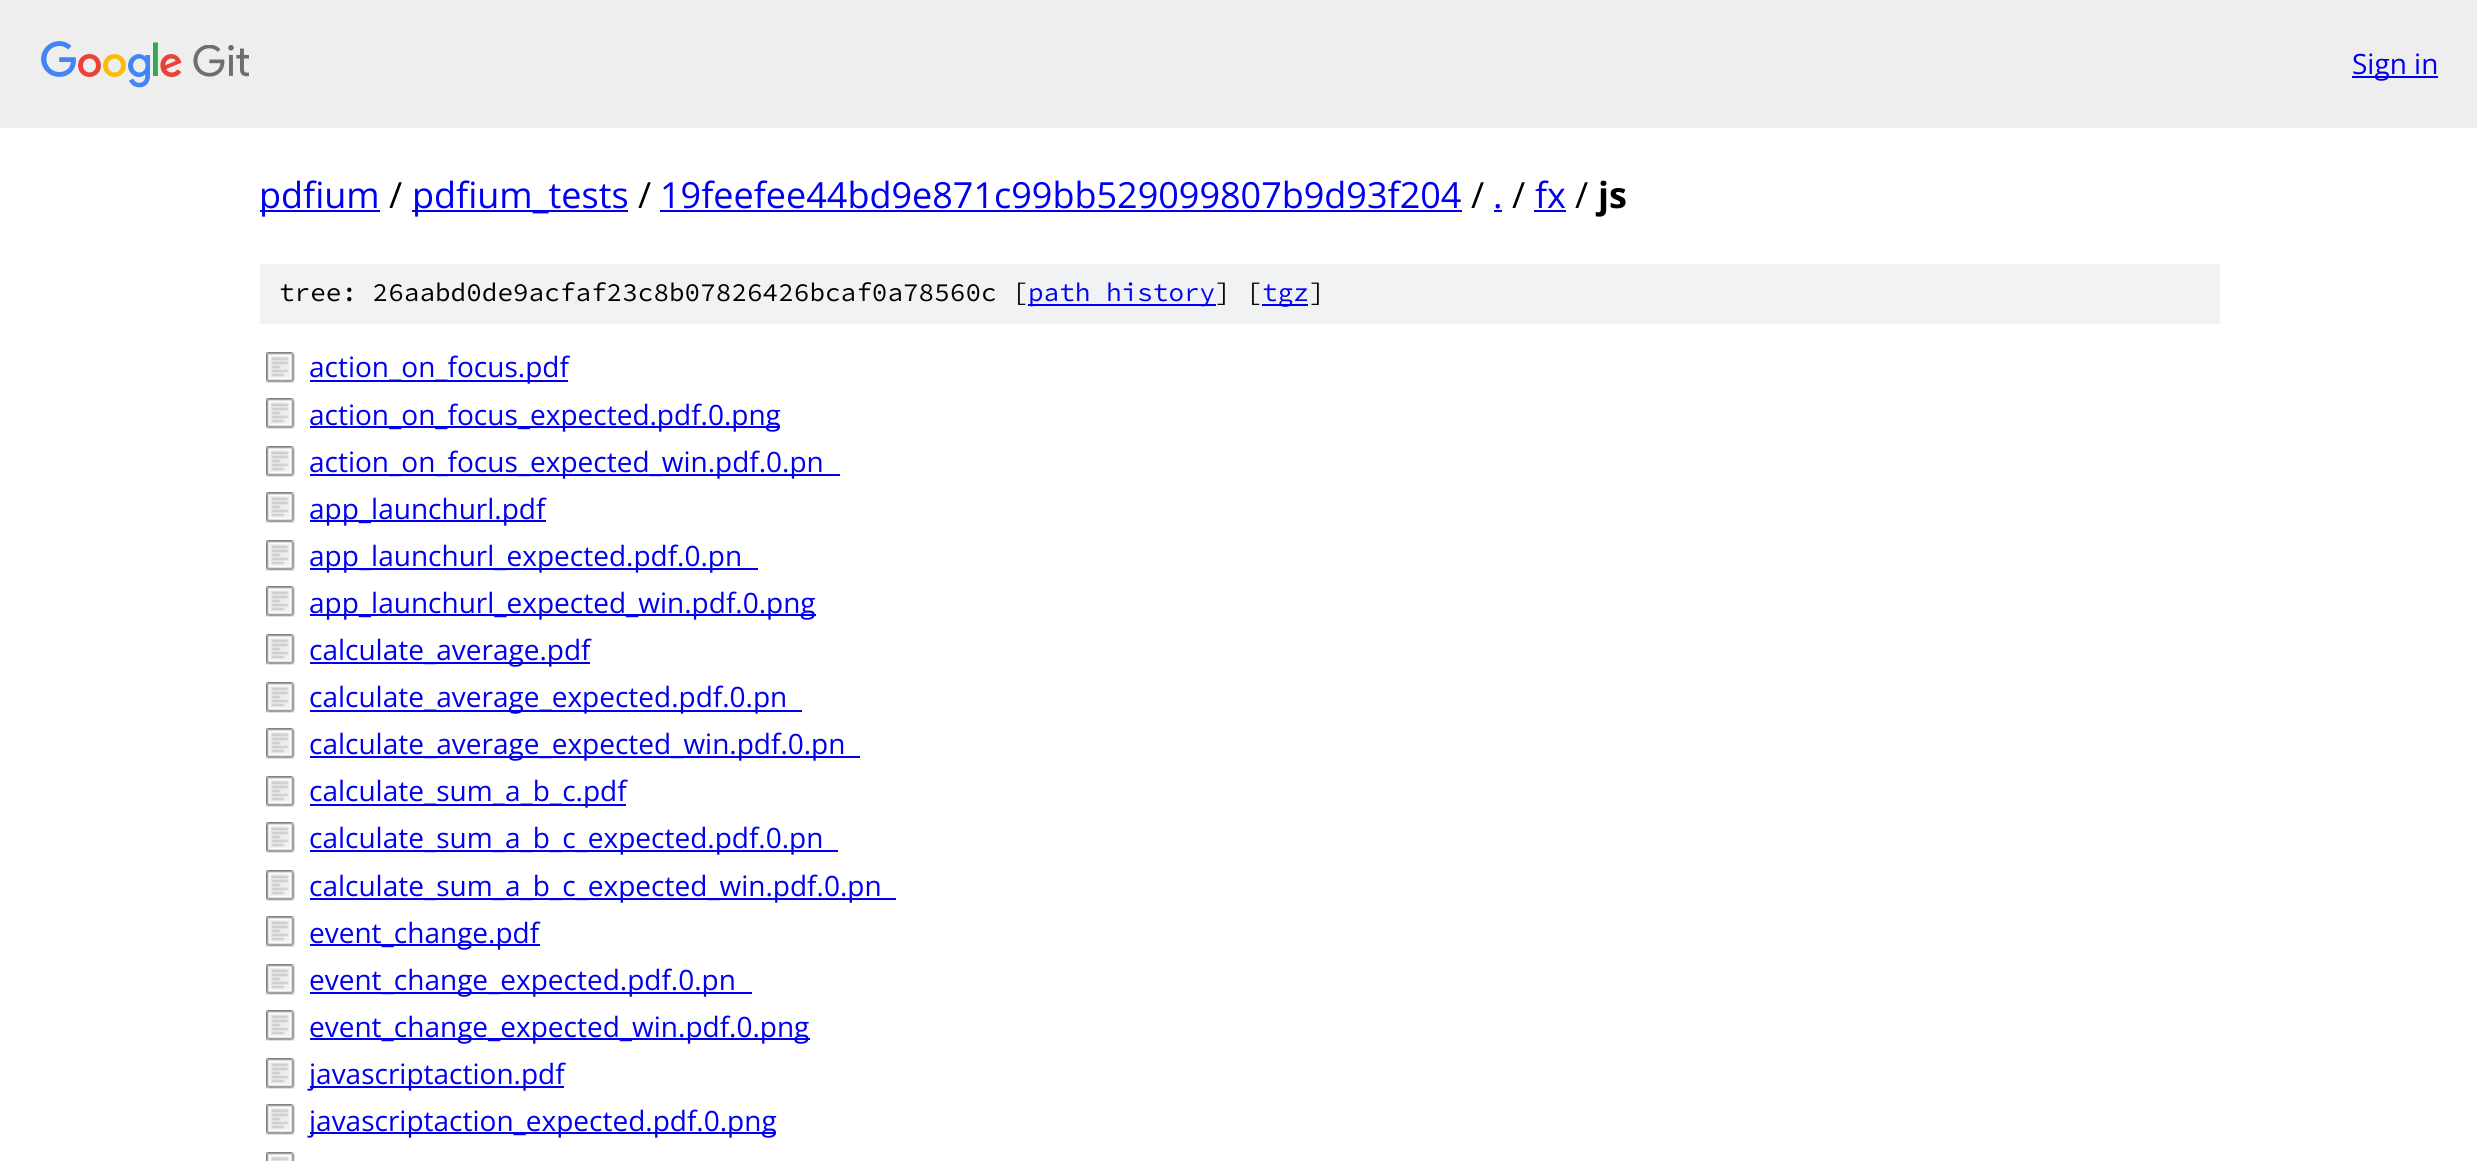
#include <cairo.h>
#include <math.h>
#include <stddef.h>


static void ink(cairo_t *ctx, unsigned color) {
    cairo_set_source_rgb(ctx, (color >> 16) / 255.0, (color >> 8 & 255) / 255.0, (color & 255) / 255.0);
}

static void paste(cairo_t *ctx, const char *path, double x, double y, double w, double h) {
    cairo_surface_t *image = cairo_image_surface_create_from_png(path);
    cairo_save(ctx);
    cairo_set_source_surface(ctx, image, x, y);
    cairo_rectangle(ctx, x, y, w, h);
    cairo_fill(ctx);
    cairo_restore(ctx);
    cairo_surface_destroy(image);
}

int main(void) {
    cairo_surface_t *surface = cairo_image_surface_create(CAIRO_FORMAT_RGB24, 2477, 1161);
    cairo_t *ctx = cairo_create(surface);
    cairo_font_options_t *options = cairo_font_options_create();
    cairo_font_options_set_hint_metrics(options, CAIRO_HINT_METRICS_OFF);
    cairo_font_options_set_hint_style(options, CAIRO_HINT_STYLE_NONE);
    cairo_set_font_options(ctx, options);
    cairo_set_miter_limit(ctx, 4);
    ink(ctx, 0xFFFFFF);
    cairo_paint(ctx);
    ink(ctx, 0xEEEEEE);
    cairo_rectangle(ctx, 0, 0, 2477, 128);
    cairo_fill(ctx);
    paste(ctx, "media/1.png", 41, 41, 208, 47);
    ink(ctx, 0x0000EE);
    cairo_rectangle(ctx, 2352, 76, 86, 2);
    cairo_fill(ctx);
    cairo_select_font_face(ctx, "Open Sans", CAIRO_FONT_SLANT_NORMAL, CAIRO_FONT_WEIGHT_NORMAL);
    cairo_set_font_size(ctx, 28);
    cairo_move_to(ctx, 2352, 74);
    cairo_show_text(ctx, "Sign in");
    cairo_rectangle(ctx, 260, 210, 120, 2);
    cairo_fill(ctx);
    cairo_set_font_size(ctx, 36);
    cairo_move_to(ctx, 259, 208);
    cairo_show_text(ctx, "pdfium");
    ink(ctx, 0x000000);
    cairo_move_to(ctx, 389, 208);
    cairo_show_text(ctx, "/");
    ink(ctx, 0x0000EE);
    cairo_rectangle(ctx, 412, 210, 216, 2);
    cairo_fill(ctx);
    cairo_move_to(ctx, 412, 208);
    cairo_show_text(ctx, "pdfium_tests");
    ink(ctx, 0x000000);
    cairo_move_to(ctx, 638, 208);
    cairo_show_text(ctx, "/");
    ink(ctx, 0x0000EE);
    cairo_move_to(ctx, 660, 208);
    cairo_show_text(ctx, "19feefee44bd9e871c99bb529099807b9d93f204");
    cairo_rectangle(ctx, 660, 210, 802, 2);
    cairo_fill(ctx);
    ink(ctx, 0x000000);
    cairo_move_to(ctx, 1471, 208);
    cairo_show_text(ctx, "/");
    ink(ctx, 0x0000EE);
    cairo_move_to(ctx, 1493, 208);
    cairo_show_text(ctx, ".");
    cairo_rectangle(ctx, 1494, 210, 8, 2);
    cairo_fill(ctx);
    ink(ctx, 0x000000);
    cairo_move_to(ctx, 1512, 208);
    cairo_show_text(ctx, "/");
    ink(ctx, 0x0000EE);
    cairo_move_to(ctx, 1535, 208);
    cairo_show_text(ctx, "fx");
    cairo_rectangle(ctx, 1534, 210, 32, 2);
    cairo_fill(ctx);
    ink(ctx, 0x000000);
    cairo_move_to(ctx, 1575, 208);
    cairo_show_text(ctx, "/");
    cairo_select_font_face(ctx, "Open Sans", CAIRO_FONT_SLANT_NORMAL, CAIRO_FONT_WEIGHT_BOLD);
    cairo_move_to(ctx, 1598, 208);
    cairo_show_text(ctx, "js");
    ink(ctx, 0xF1F2F3);
    cairo_rectangle(ctx, 260, 264, 1960, 60);
    cairo_fill(ctx);
    cairo_select_font_face(ctx, "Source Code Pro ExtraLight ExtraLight", CAIRO_FONT_SLANT_NORMAL, CAIRO_FONT_WEIGHT_NORMAL);
    cairo_set_font_size(ctx, 26);
    ink(ctx, 0x000000);
    cairo_move_to(ctx, 279, 301);
    cairo_show_text(ctx, "tree: 26aabd0de9acfaf23c8b07826426bcaf0a78560c [");
    ink(ctx, 0x0000EE);
    cairo_rectangle(ctx, 1028, 304, 188, 2);
    cairo_fill(ctx);
    cairo_move_to(ctx, 1028, 301);
    cairo_show_text(ctx, "path history");
    ink(ctx, 0x000000);
    cairo_move_to(ctx, 1215, 301);
    cairo_show_text(ctx, "] [");
    ink(ctx, 0x0000EE);
    cairo_rectangle(ctx, 1262, 304, 46, 2);
    cairo_fill(ctx);
    cairo_move_to(ctx, 1262, 301);
    cairo_show_text(ctx, "tgz");
    ink(ctx, 0x000000);
    cairo_move_to(ctx, 1309, 301);
    cairo_show_text(ctx, "]");
    paste(ctx, "media/2.png", 266, 352, 29, 31);
    ink(ctx, 0x0000EE);
    cairo_rectangle(ctx, 310, 380, 258, 2);
    cairo_fill(ctx);
    cairo_select_font_face(ctx, "Open Sans", CAIRO_FONT_SLANT_NORMAL, CAIRO_FONT_WEIGHT_NORMAL);
    cairo_set_font_size(ctx, 28);
    cairo_move_to(ctx, 309, 377);
    cairo_show_text(ctx, "action_on_focus.pdf");
    paste(ctx, "media/2.png", 266, 398, 29, 31);
    cairo_rectangle(ctx, 310, 426, 470, 2);
    cairo_fill(ctx);
    cairo_move_to(ctx, 309, 425);
    cairo_show_text(ctx, "action_on_focus_expected.pdf.0.png");
    paste(ctx, "media/2.png", 266, 446, 29, 31);
    cairo_rectangle(ctx, 310, 474, 530, 2);
    cairo_fill(ctx);
    cairo_move_to(ctx, 309, 472);
    cairo_show_text(ctx, "action_on_focus_expected_win.pdf.0.pn");
    paste(ctx, "media/2.png", 266, 492, 29, 31);
    cairo_rectangle(ctx, 310, 520, 236, 2);
    cairo_fill(ctx);
    cairo_move_to(ctx, 309, 519);
    cairo_show_text(ctx, "app_launchurl.pdf");
    paste(ctx, "media/2.png", 266, 540, 29, 31);
    cairo_rectangle(ctx, 310, 568, 448, 2);
    cairo_fill(ctx);
    cairo_move_to(ctx, 309, 566);
    cairo_show_text(ctx, "app_launchurl_expected.pdf.0.pn");
    paste(ctx, "media/2.png", 266, 586, 29, 31);
    cairo_rectangle(ctx, 310, 614, 506, 2);
    cairo_fill(ctx);
    cairo_move_to(ctx, 309, 613);
    cairo_show_text(ctx, "app_launchurl_expected_win.pdf.0.png");
    paste(ctx, "media/2.png", 266, 634, 29, 31);
    cairo_rectangle(ctx, 310, 662, 280, 2);
    cairo_fill(ctx);
    cairo_move_to(ctx, 309, 660);
    cairo_show_text(ctx, "calculate_average.pdf");
    paste(ctx, "media/2.png", 266, 682, 29, 31);
    cairo_rectangle(ctx, 310, 710, 492, 2);
    cairo_fill(ctx);
    cairo_move_to(ctx, 309, 707);
    cairo_show_text(ctx, "calculate_average_expected.pdf.0.pn");
    paste(ctx, "media/2.png", 266, 728, 29, 31);
    cairo_rectangle(ctx, 310, 756, 550, 2);
    cairo_fill(ctx);
    cairo_move_to(ctx, 309, 754);
    cairo_show_text(ctx, "calculate_average_expected_win.pdf.0.pn");
    paste(ctx, "media/2.png", 266, 776, 29, 31);
    cairo_rectangle(ctx, 310, 804, 316, 2);
    cairo_fill(ctx);
    cairo_move_to(ctx, 309, 801);
    cairo_show_text(ctx, "calculate_sum_a_b_c.pdf");
    paste(ctx, "media/2.png", 266, 822, 29, 31);
    cairo_rectangle(ctx, 310, 850, 528, 2);
    cairo_fill(ctx);
    cairo_move_to(ctx, 309, 848);
    cairo_show_text(ctx, "calculate_sum_a_b_c_expected.pdf.0.pn");
    paste(ctx, "media/2.png", 266, 870, 29, 31);
    cairo_rectangle(ctx, 310, 898, 586, 2);
    cairo_fill(ctx);
    cairo_move_to(ctx, 309, 896);
    cairo_show_text(ctx, "calculate_sum_a_b_c_expected_win.pdf.0.pn");
    paste(ctx, "media/2.png", 266, 916, 29, 31);
    cairo_rectangle(ctx, 310, 944, 230, 2);
    cairo_fill(ctx);
    cairo_move_to(ctx, 309, 943);
    cairo_show_text(ctx, "event_change.pdf");
    paste(ctx, "media/2.png", 266, 964, 29, 31);
    cairo_rectangle(ctx, 310, 992, 442, 2);
    cairo_fill(ctx);
    cairo_move_to(ctx, 309, 990);
    cairo_show_text(ctx, "event_change_expected.pdf.0.pn");
    paste(ctx, "media/2.png", 266, 1010, 29, 31);
    cairo_rectangle(ctx, 310, 1038, 500, 2);
    cairo_fill(ctx);
    cairo_move_to(ctx, 309, 1037);
    cairo_show_text(ctx, "event_change_expected_win.pdf.0.png");
    paste(ctx, "media/2.png", 266, 1058, 29, 31);
    cairo_rectangle(ctx, 310, 1086, 254, 2);
    cairo_fill(ctx);
    cairo_move_to(ctx, 309, 1084);
    cairo_show_text(ctx, "javascriptaction.pdf");
    paste(ctx, "media/2.png", 266, 1104, 29, 31);
    cairo_rectangle(ctx, 310, 1132, 466, 2);
    cairo_fill(ctx);
    cairo_move_to(ctx, 309, 1131);
    cairo_show_text(ctx, "javascriptaction_expected.pdf.0.png");
    paste(ctx, "media/3.png", 266, 1152, 29, 9);
    cairo_surface_write_to_png(surface, "image.png");
    cairo_font_options_destroy(options);
    cairo_destroy(ctx);
    cairo_surface_destroy(surface);
    return 0;
}
